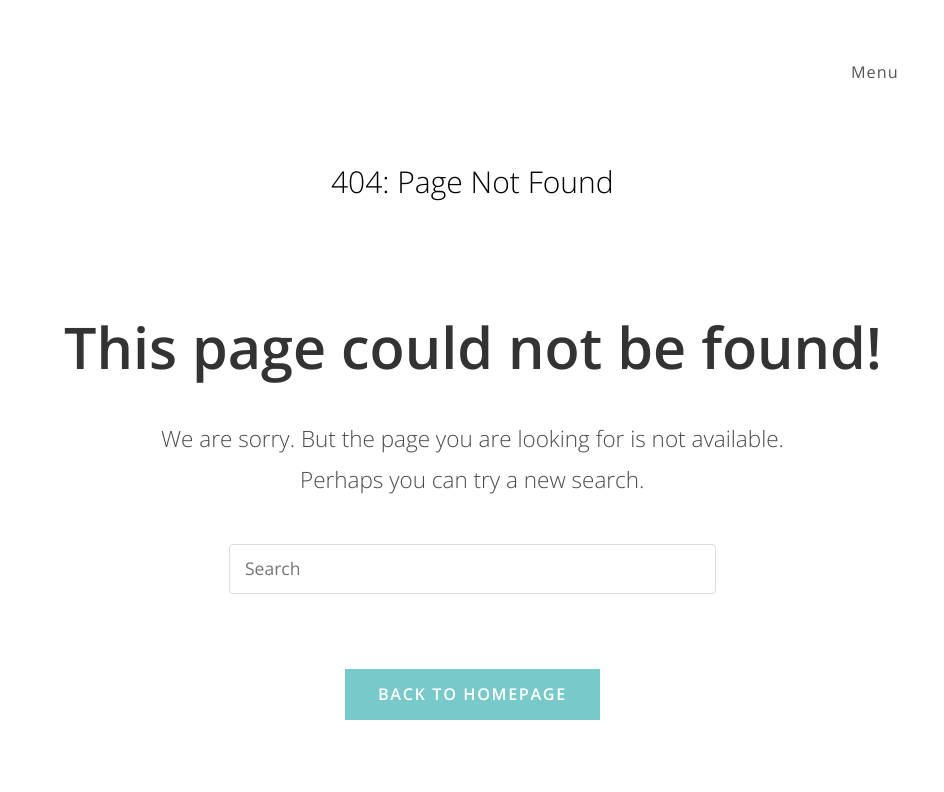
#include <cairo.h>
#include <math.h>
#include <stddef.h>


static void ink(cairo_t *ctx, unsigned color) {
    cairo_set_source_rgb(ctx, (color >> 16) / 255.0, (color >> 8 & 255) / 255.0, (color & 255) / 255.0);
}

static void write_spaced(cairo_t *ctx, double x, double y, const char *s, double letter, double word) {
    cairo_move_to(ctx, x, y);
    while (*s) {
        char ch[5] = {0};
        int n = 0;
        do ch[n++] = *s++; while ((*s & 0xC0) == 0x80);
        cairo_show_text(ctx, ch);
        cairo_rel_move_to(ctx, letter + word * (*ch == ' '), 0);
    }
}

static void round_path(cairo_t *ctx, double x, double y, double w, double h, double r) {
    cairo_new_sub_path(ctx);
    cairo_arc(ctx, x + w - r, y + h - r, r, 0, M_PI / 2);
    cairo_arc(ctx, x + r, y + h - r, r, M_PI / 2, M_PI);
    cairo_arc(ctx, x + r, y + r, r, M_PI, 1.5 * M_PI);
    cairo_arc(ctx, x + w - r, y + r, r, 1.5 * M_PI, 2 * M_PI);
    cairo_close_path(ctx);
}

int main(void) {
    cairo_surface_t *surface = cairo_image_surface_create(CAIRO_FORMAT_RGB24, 944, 792);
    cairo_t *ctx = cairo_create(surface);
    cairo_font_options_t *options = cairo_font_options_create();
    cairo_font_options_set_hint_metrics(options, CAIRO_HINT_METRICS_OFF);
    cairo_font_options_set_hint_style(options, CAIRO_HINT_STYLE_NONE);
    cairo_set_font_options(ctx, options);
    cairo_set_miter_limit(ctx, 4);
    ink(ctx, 0xFFFFFF);
    cairo_paint(ctx);
    cairo_select_font_face(ctx, "Open Sans", CAIRO_FONT_SLANT_NORMAL, CAIRO_FONT_WEIGHT_NORMAL);
    cairo_set_font_size(ctx, 16.25);
    ink(ctx, 0x555555);
    write_spaced(ctx, 851, 78, "Menu", 1, 0);
    cairo_select_font_face(ctx, "Open Sans Light", CAIRO_FONT_SLANT_NORMAL, CAIRO_FONT_WEIGHT_NORMAL);
    cairo_set_font_size(ctx, 30);
    ink(ctx, 0x000000);
    cairo_move_to(ctx, 331, 193);
    cairo_show_text(ctx, "404: Page Not Found");
    cairo_select_font_face(ctx, "Open Sans SemiBold", CAIRO_FONT_SLANT_NORMAL, CAIRO_FONT_WEIGHT_NORMAL);
    cairo_set_font_size(ctx, 57.5);
    ink(ctx, 0x333333);
    cairo_move_to(ctx, 64, 369);
    cairo_show_text(ctx, "This page could not be found!");
    cairo_select_font_face(ctx, "Open Sans Light", CAIRO_FONT_SLANT_NORMAL, CAIRO_FONT_WEIGHT_NORMAL);
    cairo_set_font_size(ctx, 22.5);
    ink(ctx, 0x4A4A4A);
    cairo_move_to(ctx, 161, 447);
    cairo_show_text(ctx, "We are sorry. But the page you are looking for is not available.");
    cairo_move_to(ctx, 300, 488);
    cairo_show_text(ctx, "Perhaps you can try a new search.");
    round_path(ctx, 229.5, 544.5, 486, 49, 3.5);
    ink(ctx, 0xDDDDDD);
    cairo_set_line_width(ctx, 1);
    cairo_stroke(ctx);
    cairo_select_font_face(ctx, "Open Sans", CAIRO_FONT_SLANT_NORMAL, CAIRO_FONT_WEIGHT_NORMAL);
    cairo_set_font_size(ctx, 17.5);
    ink(ctx, 0x757575);
    cairo_move_to(ctx, 245, 575);
    cairo_show_text(ctx, "Search");
    ink(ctx, 0x78C9C9);
    cairo_rectangle(ctx, 345, 669, 255, 51);
    cairo_fill(ctx);
    cairo_select_font_face(ctx, "Open Sans SemiBold", CAIRO_FONT_SLANT_NORMAL, CAIRO_FONT_WEIGHT_NORMAL);
    cairo_set_font_size(ctx, 16.25);
    ink(ctx, 0xFFFFFF);
    write_spaced(ctx, 378, 700, "BACK TO HOMEPAGE", 1.6, 0);
    cairo_surface_write_to_png(surface, "image.png");
    cairo_font_options_destroy(options);
    cairo_destroy(ctx);
    cairo_surface_destroy(surface);
    return 0;
}
